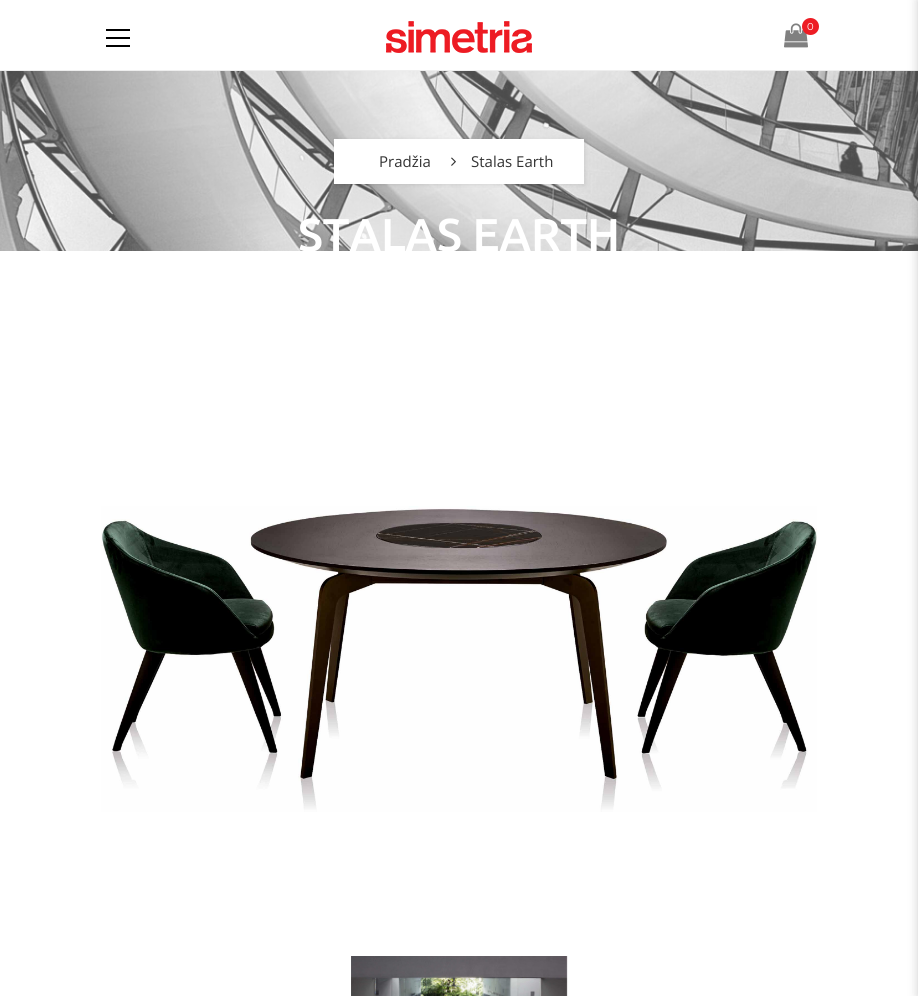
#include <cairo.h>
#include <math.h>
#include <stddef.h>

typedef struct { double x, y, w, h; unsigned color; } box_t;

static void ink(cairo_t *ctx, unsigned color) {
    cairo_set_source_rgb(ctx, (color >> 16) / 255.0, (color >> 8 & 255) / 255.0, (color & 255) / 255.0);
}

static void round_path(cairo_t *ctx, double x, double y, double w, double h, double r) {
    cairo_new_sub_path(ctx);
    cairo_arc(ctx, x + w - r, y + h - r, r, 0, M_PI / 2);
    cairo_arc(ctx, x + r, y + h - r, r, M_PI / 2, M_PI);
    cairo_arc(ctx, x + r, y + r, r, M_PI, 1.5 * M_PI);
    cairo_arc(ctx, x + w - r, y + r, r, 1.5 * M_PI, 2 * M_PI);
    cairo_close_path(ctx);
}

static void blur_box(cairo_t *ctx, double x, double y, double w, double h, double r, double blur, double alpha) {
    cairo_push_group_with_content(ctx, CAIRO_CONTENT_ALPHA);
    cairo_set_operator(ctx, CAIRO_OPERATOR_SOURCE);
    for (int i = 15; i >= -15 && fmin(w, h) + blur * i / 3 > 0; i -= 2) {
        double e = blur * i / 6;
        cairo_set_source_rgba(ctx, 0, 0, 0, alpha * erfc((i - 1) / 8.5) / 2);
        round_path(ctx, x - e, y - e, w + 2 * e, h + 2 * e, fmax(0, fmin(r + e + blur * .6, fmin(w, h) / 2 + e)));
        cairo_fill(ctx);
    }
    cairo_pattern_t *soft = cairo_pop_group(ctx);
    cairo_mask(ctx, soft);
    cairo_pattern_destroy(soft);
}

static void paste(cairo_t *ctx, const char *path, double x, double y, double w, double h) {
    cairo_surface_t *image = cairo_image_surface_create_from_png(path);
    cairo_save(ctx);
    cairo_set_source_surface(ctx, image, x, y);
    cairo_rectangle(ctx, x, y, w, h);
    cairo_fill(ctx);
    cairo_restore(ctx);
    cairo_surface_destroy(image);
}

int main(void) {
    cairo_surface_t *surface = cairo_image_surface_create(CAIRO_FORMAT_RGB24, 918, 996);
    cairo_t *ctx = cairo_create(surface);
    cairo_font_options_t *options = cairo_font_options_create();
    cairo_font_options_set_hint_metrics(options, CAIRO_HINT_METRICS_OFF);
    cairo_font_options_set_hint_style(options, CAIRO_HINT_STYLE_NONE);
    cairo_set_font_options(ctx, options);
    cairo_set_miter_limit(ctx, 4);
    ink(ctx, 0xFFFFFF);
    cairo_paint(ctx);
    ink(ctx, 0xEEEEEE);
    cairo_rectangle(ctx, 0, 70, 918, 1);
    cairo_fill(ctx);
    paste(ctx, "media/1.png", 386, 21, 146, 32);
    paste(ctx, "media/2.png", 784, 23, 24, 25);
    ink(ctx, 0xED1C24);
    cairo_arc(ctx, 810.5, 26.5, 8.5, 0, 2 * M_PI);
    cairo_fill(ctx);
    cairo_select_font_face(ctx, "Montserrat", CAIRO_FONT_SLANT_NORMAL, CAIRO_FONT_WEIGHT_NORMAL);
    cairo_set_font_size(ctx, 10);
    ink(ctx, 0xFFFFFF);
    cairo_move_to(ctx, 807, 30);
    cairo_show_text(ctx, "0");
    {
        static const box_t items[] = {
            {106, 29, 24, 2, 0x000000},
            {106, 37, 24, 2, 0x000000},
            {106, 45, 24, 2, 0x000000},
        };
        for (size_t i = 0; i < sizeof items / sizeof *items; i++) {
            ink(ctx, items[i].color);
            cairo_rectangle(ctx, items[i].x, items[i].y, items[i].w, items[i].h);
            cairo_fill(ctx);
        }
    }
    paste(ctx, "media/4.png", 0, 71, 918, 180);
    ink(ctx, 0x000000);
    blur_box(ctx, 335, 140, 250, 45, 0, 2.5, 0.1);
    ink(ctx, 0xFFFFFF);
    cairo_rectangle(ctx, 334, 139, 250, 45);
    cairo_fill(ctx);
    cairo_select_font_face(ctx, "Open Sans", CAIRO_FONT_SLANT_NORMAL, CAIRO_FONT_WEIGHT_NORMAL);
    cairo_set_font_size(ctx, 15);
    ink(ctx, 0x333333);
    cairo_move_to(ctx, 379, 167);
    cairo_show_text(ctx, "Pradžia");
    paste(ctx, "media/3.png", 451, 157, 5, 9);
    cairo_move_to(ctx, 471, 167);
    cairo_show_text(ctx, "Stalas Earth");
    cairo_select_font_face(ctx, "Ubuntu Medium", CAIRO_FONT_SLANT_NORMAL, CAIRO_FONT_WEIGHT_NORMAL);
    cairo_set_font_size(ctx, 46);
    ink(ctx, 0xFFFFFF);
    cairo_move_to(ctx, 298, 251);
    cairo_show_text(ctx, "STALAS EARTH");
    paste(ctx, "media/5.png", 101, 506, 716, 306);
    paste(ctx, "media/6.png", 351, 956, 217, 40);
    ink(ctx, 0x000000);
    blur_box(ctx, 918, 0, 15, 996, 0, 5, 0.2);
    cairo_surface_write_to_png(surface, "image.png");
    cairo_font_options_destroy(options);
    cairo_destroy(ctx);
    cairo_surface_destroy(surface);
    return 0;
}
